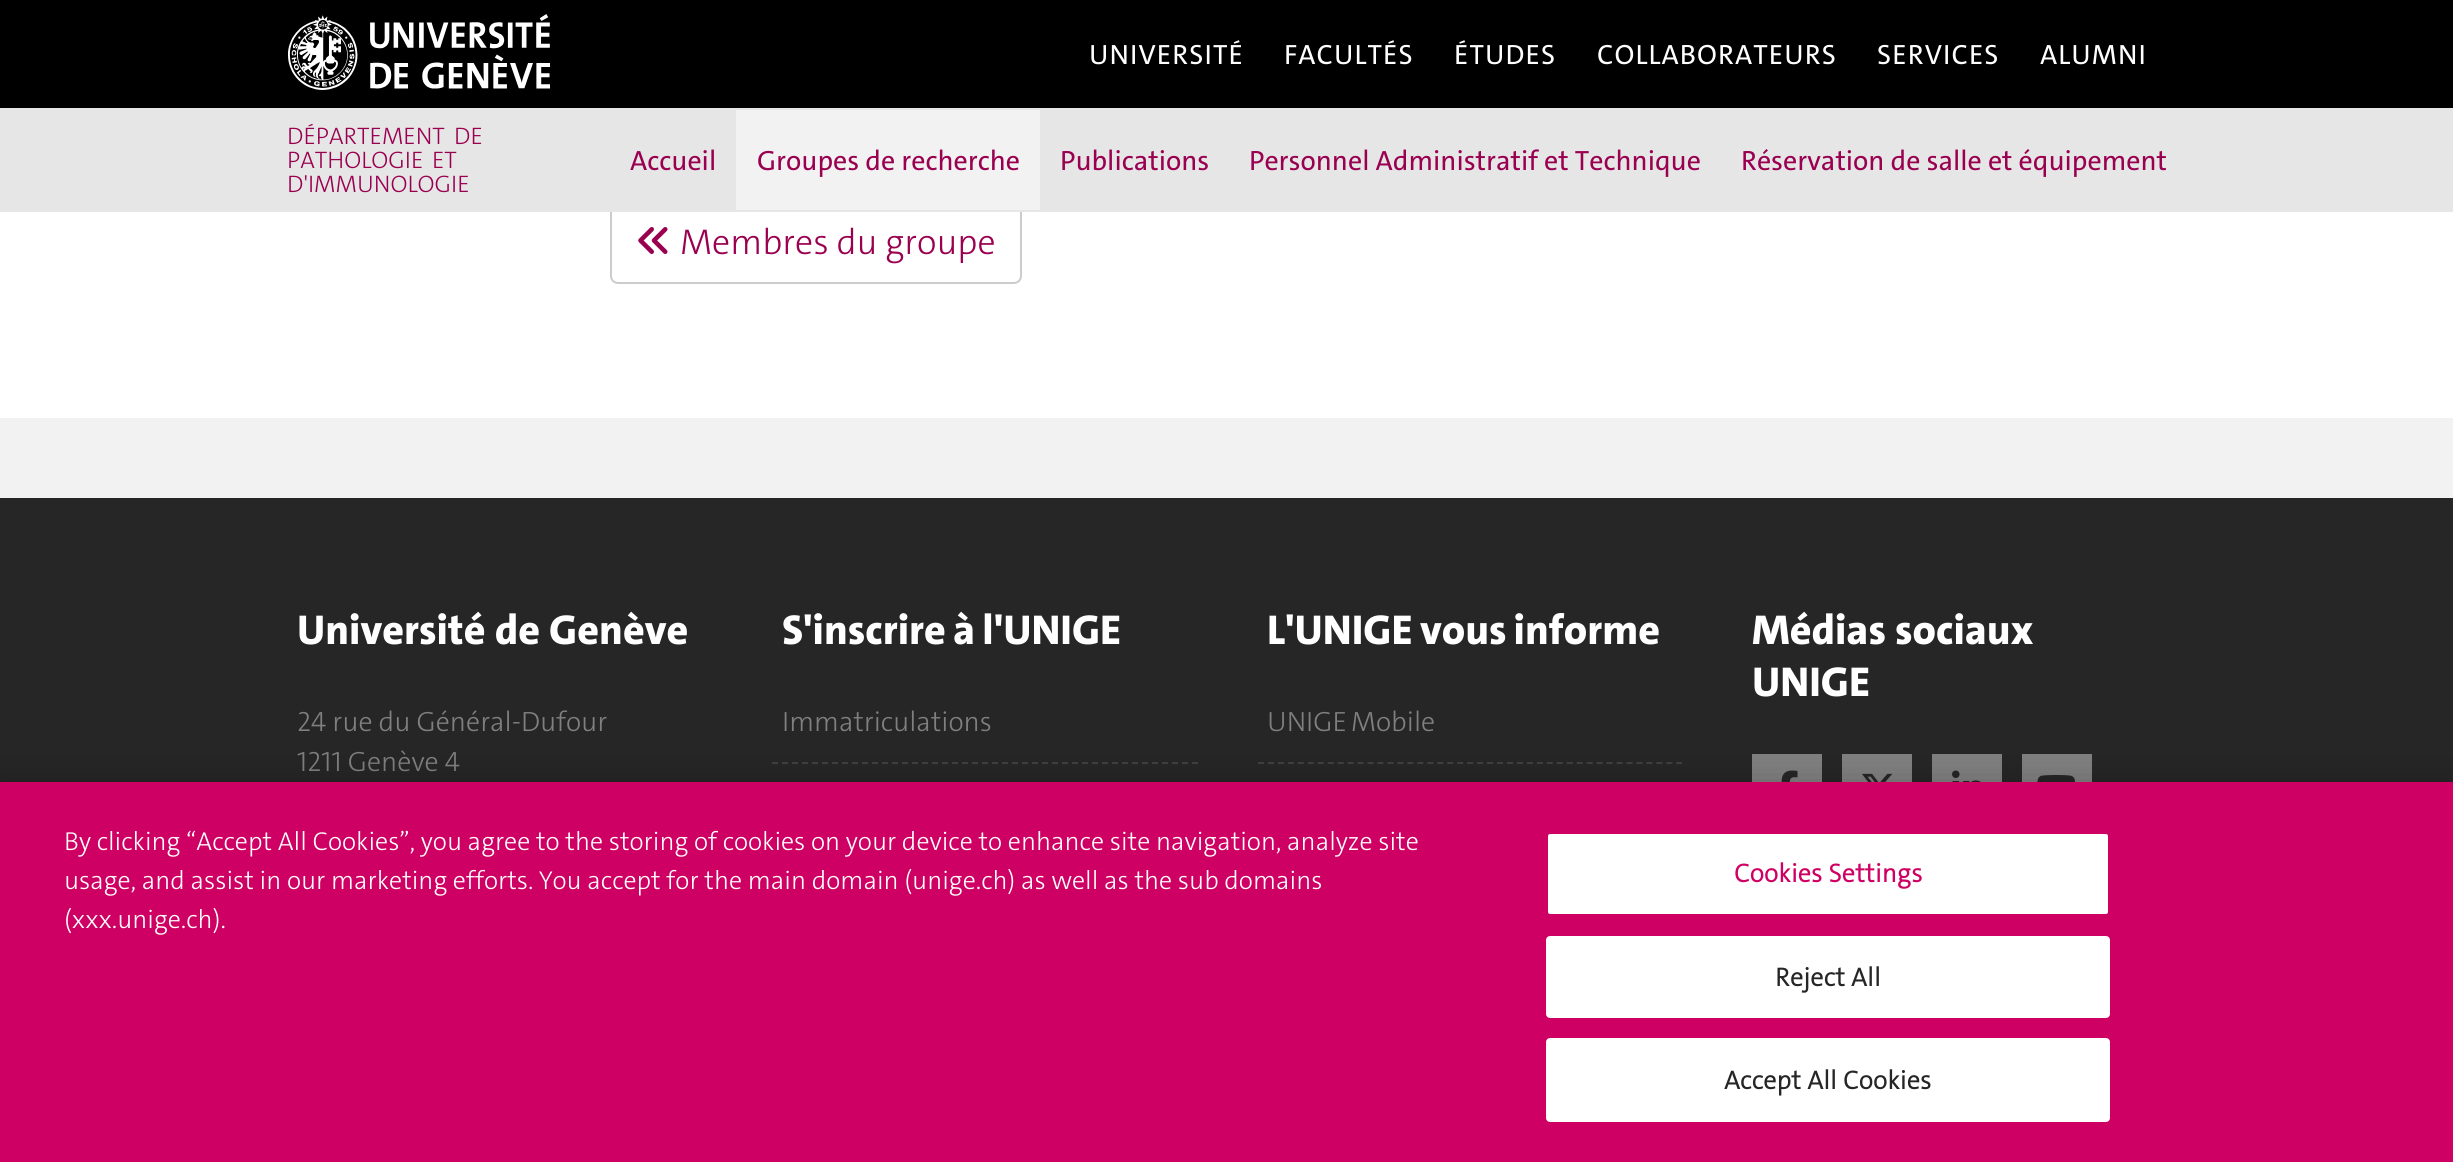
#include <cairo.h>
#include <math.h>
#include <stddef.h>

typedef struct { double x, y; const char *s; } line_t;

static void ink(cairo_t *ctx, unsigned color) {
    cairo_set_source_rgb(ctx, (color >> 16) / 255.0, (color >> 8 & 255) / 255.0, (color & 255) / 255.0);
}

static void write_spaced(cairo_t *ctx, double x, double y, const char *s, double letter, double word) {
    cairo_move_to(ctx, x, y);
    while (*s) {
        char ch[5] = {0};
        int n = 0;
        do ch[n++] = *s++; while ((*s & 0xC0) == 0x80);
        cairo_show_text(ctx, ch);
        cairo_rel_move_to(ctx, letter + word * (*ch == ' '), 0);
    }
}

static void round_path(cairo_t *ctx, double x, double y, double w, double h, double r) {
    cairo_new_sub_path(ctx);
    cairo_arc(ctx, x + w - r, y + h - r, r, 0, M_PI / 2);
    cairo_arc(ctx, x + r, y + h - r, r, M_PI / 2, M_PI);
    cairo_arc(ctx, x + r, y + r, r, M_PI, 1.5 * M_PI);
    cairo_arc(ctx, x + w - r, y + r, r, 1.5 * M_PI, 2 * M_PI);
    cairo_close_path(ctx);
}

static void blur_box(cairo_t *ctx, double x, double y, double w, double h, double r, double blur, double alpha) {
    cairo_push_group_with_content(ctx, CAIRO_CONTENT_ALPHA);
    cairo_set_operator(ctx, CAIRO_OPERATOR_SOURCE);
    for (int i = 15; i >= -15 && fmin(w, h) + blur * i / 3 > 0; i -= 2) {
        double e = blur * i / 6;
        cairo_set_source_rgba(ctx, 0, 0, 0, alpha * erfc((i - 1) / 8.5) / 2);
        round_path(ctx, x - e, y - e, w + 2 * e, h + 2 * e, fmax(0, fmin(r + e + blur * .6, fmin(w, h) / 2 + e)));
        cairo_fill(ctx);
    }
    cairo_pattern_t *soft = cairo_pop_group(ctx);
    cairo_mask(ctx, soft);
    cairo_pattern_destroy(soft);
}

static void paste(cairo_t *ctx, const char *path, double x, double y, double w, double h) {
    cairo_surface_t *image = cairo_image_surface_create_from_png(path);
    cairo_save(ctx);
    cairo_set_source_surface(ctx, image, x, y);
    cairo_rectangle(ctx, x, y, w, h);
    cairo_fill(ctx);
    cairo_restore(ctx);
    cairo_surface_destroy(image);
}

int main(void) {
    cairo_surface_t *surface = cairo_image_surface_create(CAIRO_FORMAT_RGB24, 2453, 1162);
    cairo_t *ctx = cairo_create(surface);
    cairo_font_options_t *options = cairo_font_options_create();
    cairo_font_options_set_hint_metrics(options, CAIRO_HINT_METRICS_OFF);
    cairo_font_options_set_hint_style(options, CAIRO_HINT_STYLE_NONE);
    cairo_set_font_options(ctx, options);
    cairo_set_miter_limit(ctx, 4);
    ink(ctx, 0xFFFFFF);
    cairo_paint(ctx);
    ink(ctx, 0x000000);
    cairo_rectangle(ctx, 0, 0, 2453, 108);
    cairo_fill(ctx);
    paste(ctx, "media/1.png", 288, 14, 262, 76);
    cairo_select_font_face(ctx, "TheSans", CAIRO_FONT_SLANT_NORMAL, CAIRO_FONT_WEIGHT_NORMAL);
    cairo_set_font_size(ctx, 28);
    ink(ctx, 0xFFFFFF);
    {
        static const line_t items[] = {
            {1089, 64, "UNIVERSITÉ"},
            {1284, 64, "FACULTÉS"},
            {1454, 64, "ÉTUDES"},
            {1597, 64, "COLLABORATEURS"},
            {1877, 64, "SERVICES"},
            {2040, 64, "ALUMNI"},
        };
        for (size_t i = 0; i < sizeof items / sizeof *items; i++) {
            write_spaced(ctx, items[i].x, items[i].y, items[i].s, 1.1, 0);
        }
    }
    round_path(ctx, 611, 205, 410, 78, 7);
    ink(ctx, 0xCCCCCC);
    cairo_stroke(ctx);
    ink(ctx, 0xE6E6E6);
    cairo_rectangle(ctx, 0, 108, 2453, 104);
    cairo_fill(ctx);
    cairo_select_font_face(ctx, "TheSans Light", CAIRO_FONT_SLANT_NORMAL, CAIRO_FONT_WEIGHT_NORMAL);
    cairo_set_font_size(ctx, 24);
    ink(ctx, 0x9A0050);
    write_spaced(ctx, 287, 144, "DÉPARTEMENT", 0, -1);
    write_spaced(ctx, 454, 144, "DE", 0, -1);
    write_spaced(ctx, 287, 168, "PATHOLOGIE", 0, -1);
    write_spaced(ctx, 432, 168, "ET", 0, -1);
    cairo_move_to(ctx, 287, 192);
    cairo_show_text(ctx, "D'IMMUNOLOGIE");
    cairo_select_font_face(ctx, "TheSans", CAIRO_FONT_SLANT_NORMAL, CAIRO_FONT_WEIGHT_NORMAL);
    cairo_set_font_size(ctx, 28);
    cairo_move_to(ctx, 630, 170);
    cairo_show_text(ctx, "Accueil");
    ink(ctx, 0xF2F2F2);
    cairo_rectangle(ctx, 736, 110, 304, 100);
    cairo_fill(ctx);
    ink(ctx, 0x9A0050);
    {
        static const line_t items[] = {
            {757, 170, "Groupes de recherche"},
            {1060, 170, "Publications"},
            {1249, 170, "Personnel Administratif et Technique"},
            {1741, 170, "Réservation de salle et équipement"},
        };
        for (size_t i = 0; i < sizeof items / sizeof *items; i++) {
            cairo_move_to(ctx, items[i].x, items[i].y);
            cairo_show_text(ctx, items[i].s);
        }
    }
    paste(ctx, "media/2.png", 638, 227, 30, 27);
    cairo_select_font_face(ctx, "TheSans Light", CAIRO_FONT_SLANT_NORMAL, CAIRO_FONT_WEIGHT_NORMAL);
    cairo_set_font_size(ctx, 36);
    cairo_move_to(ctx, 680, 254);
    cairo_show_text(ctx, "Membres du groupe");
    ink(ctx, 0xF2F2F2);
    cairo_rectangle(ctx, 0, 418, 2453, 80);
    cairo_fill(ctx);
    ink(ctx, 0x262626);
    cairo_rectangle(ctx, 0, 498, 2453, 284);
    cairo_fill(ctx);
    cairo_select_font_face(ctx, "TheSans ExtraBold", CAIRO_FONT_SLANT_NORMAL, CAIRO_FONT_WEIGHT_NORMAL);
    cairo_set_font_size(ctx, 42);
    ink(ctx, 0xFFFFFF);
    cairo_move_to(ctx, 297, 644);
    cairo_show_text(ctx, "Université de Genève");
    cairo_select_font_face(ctx, "TheSans Light", CAIRO_FONT_SLANT_NORMAL, CAIRO_FONT_WEIGHT_NORMAL);
    cairo_set_font_size(ctx, 28);
    ink(ctx, 0x808080);
    cairo_move_to(ctx, 297, 731);
    cairo_show_text(ctx, "24 rue du Général-Dufour");
    cairo_move_to(ctx, 297, 771);
    cairo_show_text(ctx, "1211 Genève 4");
    cairo_select_font_face(ctx, "TheSans ExtraBold", CAIRO_FONT_SLANT_NORMAL, CAIRO_FONT_WEIGHT_NORMAL);
    cairo_set_font_size(ctx, 42);
    ink(ctx, 0xFFFFFF);
    write_spaced(ctx, 782, 644, "S'inscrire à l'UNIGE", 0, -2);
    cairo_new_path(ctx);
    cairo_move_to(ctx, 772, 763);
    cairo_line_to(ctx, 1198, 763);
    ink(ctx, 0x404040);
    cairo_set_dash(ctx, (double[]){6, 4}, 2, 0);
    cairo_stroke(ctx);
    cairo_select_font_face(ctx, "TheSans Light", CAIRO_FONT_SLANT_NORMAL, CAIRO_FONT_WEIGHT_NORMAL);
    cairo_set_font_size(ctx, 28);
    ink(ctx, 0x808080);
    cairo_move_to(ctx, 782, 731);
    cairo_show_text(ctx, "Immatriculations");
    cairo_select_font_face(ctx, "TheSans ExtraBold", CAIRO_FONT_SLANT_NORMAL, CAIRO_FONT_WEIGHT_NORMAL);
    cairo_set_font_size(ctx, 42);
    ink(ctx, 0xFFFFFF);
    write_spaced(ctx, 1267, 644, "L'UNIGE vous informe", 0, -2);
    cairo_new_path(ctx);
    cairo_move_to(ctx, 1258, 763);
    cairo_line_to(ctx, 1682, 763);
    ink(ctx, 0x404040);
    cairo_set_dash(ctx, (double[]){6, 3.96}, 2, 0);
    cairo_stroke(ctx);
    cairo_select_font_face(ctx, "TheSans Light", CAIRO_FONT_SLANT_NORMAL, CAIRO_FONT_WEIGHT_NORMAL);
    cairo_set_font_size(ctx, 28);
    ink(ctx, 0x808080);
    write_spaced(ctx, 1267, 731, "UNIGE Mobile", 0, -2);
    cairo_select_font_face(ctx, "TheSans ExtraBold", CAIRO_FONT_SLANT_NORMAL, CAIRO_FONT_WEIGHT_NORMAL);
    cairo_set_font_size(ctx, 42);
    ink(ctx, 0xFFFFFF);
    cairo_move_to(ctx, 1752, 644);
    cairo_show_text(ctx, "Médias sociaux");
    cairo_move_to(ctx, 1752, 696);
    cairo_show_text(ctx, "UNIGE");
    ink(ctx, 0x808080);
    cairo_rectangle(ctx, 1752, 754, 70, 28);
    cairo_fill(ctx);
    paste(ctx, "media/3.png", 1781, 770, 17, 12);
    cairo_rectangle(ctx, 1842, 754, 70, 28);
    cairo_fill(ctx);
    paste(ctx, "media/4.png", 1862, 773, 31, 9);
    cairo_rectangle(ctx, 1932, 754, 70, 28);
    cairo_fill(ctx);
    paste(ctx, "media/5.png", 1952, 770, 29, 12);
    cairo_rectangle(ctx, 2022, 754, 70, 28);
    cairo_fill(ctx);
    paste(ctx, "media/6.png", 2037, 775, 39, 7);
    ink(ctx, 0x000000);
    blur_box(ctx, 0, 782, 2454, 380, 0, 18, 0.2);
    ink(ctx, 0xCF0063);
    cairo_rectangle(ctx, 0, 782, 2453, 380);
    cairo_fill(ctx);
    cairo_select_font_face(ctx, "TheSans Light", CAIRO_FONT_SLANT_NORMAL, CAIRO_FONT_WEIGHT_NORMAL);
    cairo_set_font_size(ctx, 26.02);
    ink(ctx, 0xFFFFFF);
    {
        static const line_t items[] = {
            {64, 850, "By clicking “Accept All Cookies”, you agree to the storing of cookies on your device to enhance site navigation, analyze site"},
            {64, 889, "usage, and assist in our marketing efforts."},
            {539, 889, "You accept for the main domain (unige.ch) as well as the sub domains"},
            {64, 928, "(xxx.unige.ch)."},
        };
        for (size_t i = 0; i < sizeof items / sizeof *items; i++) {
            cairo_move_to(ctx, items[i].x, items[i].y);
            cairo_show_text(ctx, items[i].s);
        }
    }
    round_path(ctx, 1547, 833, 562, 82, 3);
    cairo_fill_preserve(ctx);
    ink(ctx, 0xCF0063);
    cairo_set_dash(ctx, NULL, 0, 0);
    cairo_stroke(ctx);
    cairo_select_font_face(ctx, "TheSans", CAIRO_FONT_SLANT_NORMAL, CAIRO_FONT_WEIGHT_BOLD);
    write_spaced(ctx, 1734, 882, "Cookies Settings", 0.25, 0);
    ink(ctx, 0xFFFFFF);
    round_path(ctx, 1547, 937, 562, 80, 3);
    cairo_fill_preserve(ctx);
    cairo_stroke(ctx);
    ink(ctx, 0x262626);
    write_spaced(ctx, 1775, 986, "Reject All", 0.25, 0);
    ink(ctx, 0xFFFFFF);
    round_path(ctx, 1547, 1039, 562, 82, 3);
    cairo_fill_preserve(ctx);
    cairo_stroke(ctx);
    ink(ctx, 0x262626);
    write_spaced(ctx, 1724, 1089, "Accept All Cookies", 0.25, 0);
    cairo_surface_write_to_png(surface, "image.png");
    cairo_font_options_destroy(options);
    cairo_destroy(ctx);
    cairo_surface_destroy(surface);
    return 0;
}
